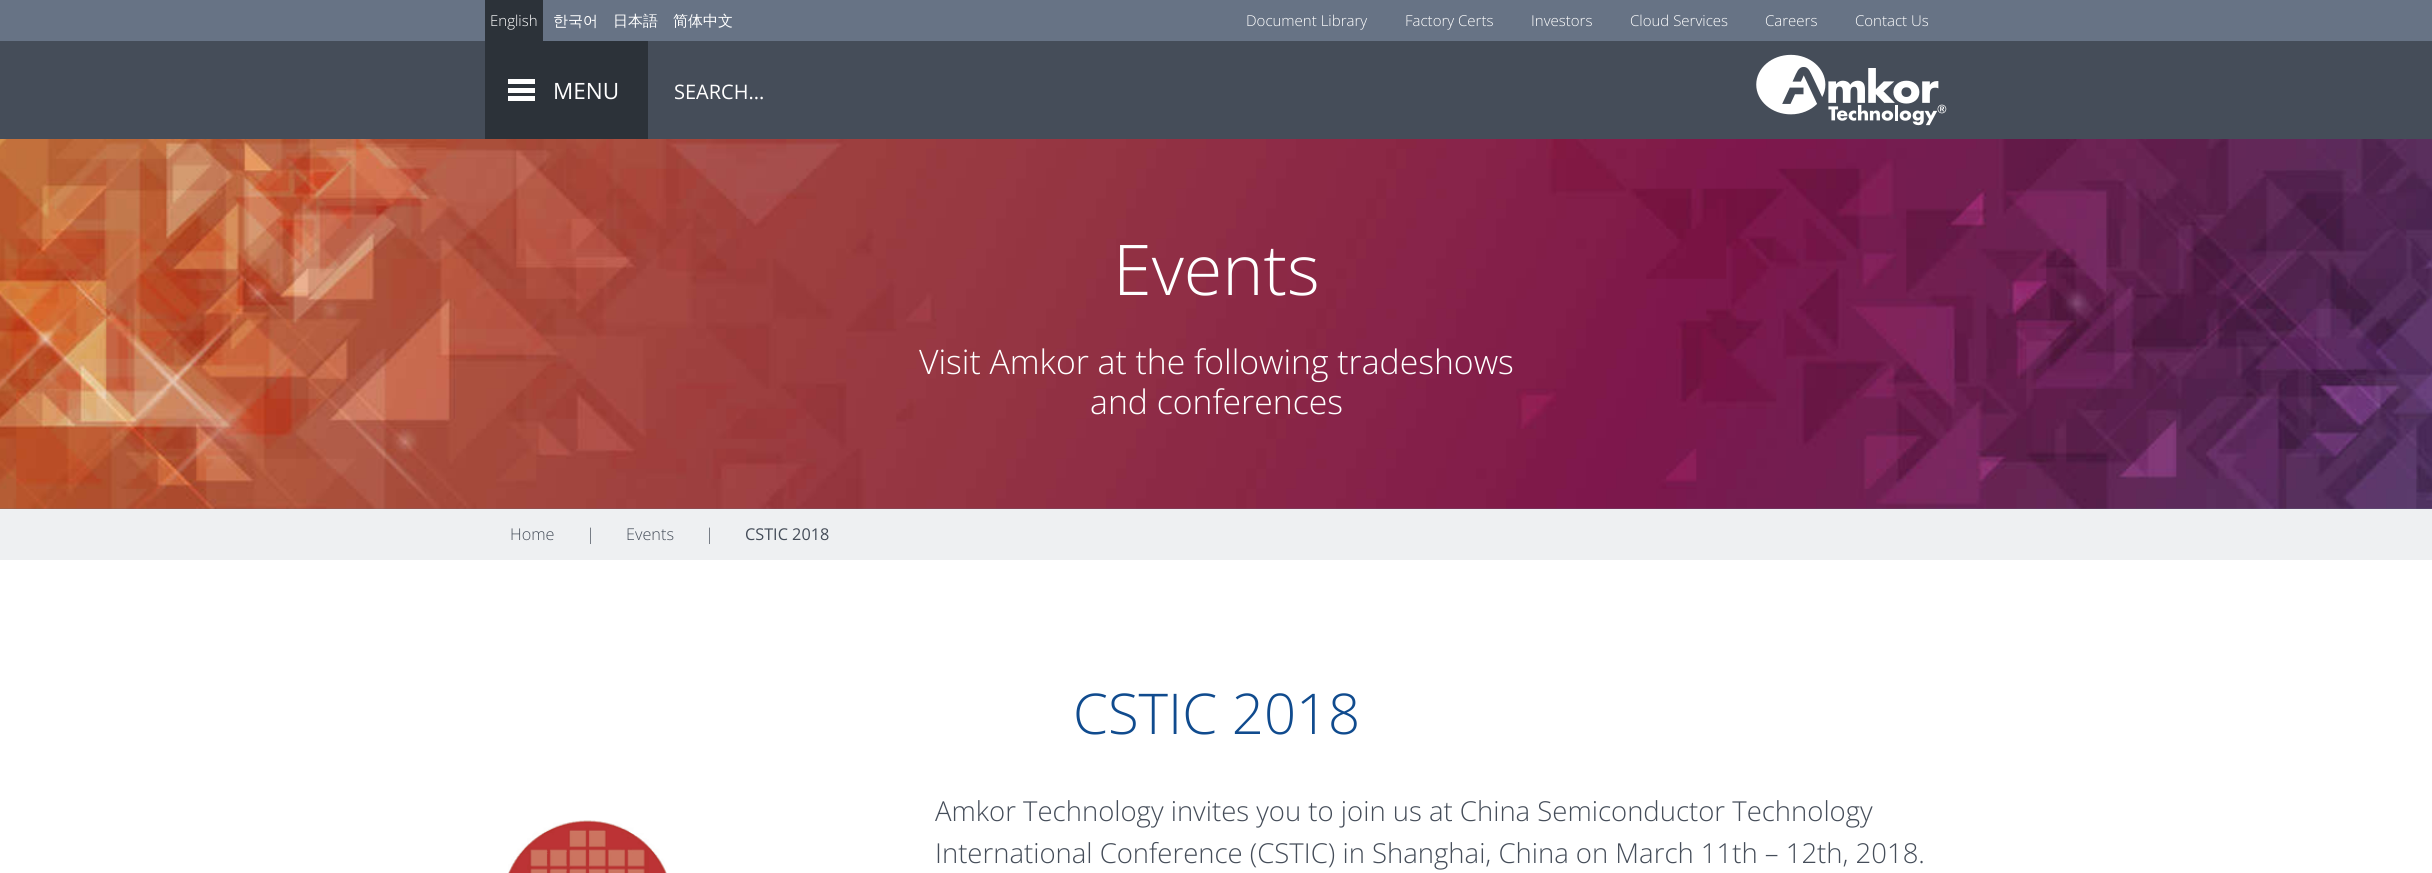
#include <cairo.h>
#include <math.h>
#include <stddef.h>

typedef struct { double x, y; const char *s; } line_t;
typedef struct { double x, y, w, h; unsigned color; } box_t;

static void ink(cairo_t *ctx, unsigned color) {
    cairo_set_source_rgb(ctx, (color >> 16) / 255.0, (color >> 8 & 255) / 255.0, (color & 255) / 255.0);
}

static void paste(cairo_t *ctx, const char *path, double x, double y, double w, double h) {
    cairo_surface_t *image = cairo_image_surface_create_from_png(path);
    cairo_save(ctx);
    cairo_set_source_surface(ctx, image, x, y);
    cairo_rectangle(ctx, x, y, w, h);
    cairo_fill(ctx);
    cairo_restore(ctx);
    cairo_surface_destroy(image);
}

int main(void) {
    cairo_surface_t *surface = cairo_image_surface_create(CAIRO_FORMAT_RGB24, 2432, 873);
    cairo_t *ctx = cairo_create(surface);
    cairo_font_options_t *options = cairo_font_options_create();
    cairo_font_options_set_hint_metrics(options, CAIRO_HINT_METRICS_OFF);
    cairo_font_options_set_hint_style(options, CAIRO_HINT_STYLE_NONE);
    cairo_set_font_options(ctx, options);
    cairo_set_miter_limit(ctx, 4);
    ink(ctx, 0x677385);
    cairo_paint(ctx);
    ink(ctx, 0x2C3239);
    cairo_rectangle(ctx, 485, 0, 58, 41);
    cairo_fill(ctx);
    cairo_select_font_face(ctx, "Open Sans Light", CAIRO_FONT_SLANT_NORMAL, CAIRO_FONT_WEIGHT_NORMAL);
    cairo_set_font_size(ctx, 15);
    ink(ctx, 0xFFFFFF);
    cairo_move_to(ctx, 490, 26);
    cairo_show_text(ctx, "English");
    cairo_select_font_face(ctx, "WenQuanYi Zen Hei Medium", CAIRO_FONT_SLANT_NORMAL, CAIRO_FONT_WEIGHT_NORMAL);
    {
        static const line_t items[] = {
            {553, 26, "한국어"},
            {613, 26, "日本語"},
            {673, 26, "简体中文"},
        };
        for (size_t i = 0; i < sizeof items / sizeof *items; i++) {
            cairo_move_to(ctx, items[i].x, items[i].y);
            cairo_show_text(ctx, items[i].s);
        }
    }
    cairo_select_font_face(ctx, "Open Sans Light", CAIRO_FONT_SLANT_NORMAL, CAIRO_FONT_WEIGHT_NORMAL);
    {
        static const line_t items[] = {
            {1246, 26, "Document Library"},
            {1405, 26, "Factory Certs"},
            {1531, 26, "Investors"},
            {1630, 26, "Cloud Services"},
            {1765, 26, "Careers"},
            {1855, 26, "Contact Us"},
        };
        for (size_t i = 0; i < sizeof items / sizeof *items; i++) {
            cairo_move_to(ctx, items[i].x, items[i].y);
            cairo_show_text(ctx, items[i].s);
        }
    }
    {
        static const box_t items[] = {
            {0, 41, 2432, 98, 0x454D59},
            {485, 41, 163, 98, 0x2C3239},
            {508, 79, 27, 5, 0xFFFFFF},
            {508, 88, 27, 5, 0xFFFFFF},
            {508, 96, 27, 5, 0xFFFFFF},
        };
        for (size_t i = 0; i < sizeof items / sizeof *items; i++) {
            ink(ctx, items[i].color);
            cairo_rectangle(ctx, items[i].x, items[i].y, items[i].w, items[i].h);
            cairo_fill(ctx);
        }
    }
    cairo_select_font_face(ctx, "Open Sans", CAIRO_FONT_SLANT_NORMAL, CAIRO_FONT_WEIGHT_NORMAL);
    cairo_set_font_size(ctx, 22.5);
    cairo_move_to(ctx, 553, 99);
    cairo_show_text(ctx, "MENU");
    cairo_set_font_size(ctx, 20);
    cairo_move_to(ctx, 674, 99);
    cairo_show_text(ctx, "SEARCH...");
    paste(ctx, "media/1.png", 1756, 54, 191, 72);
    paste(ctx, "media/2.png", 0, 139, 2432, 370);
    cairo_select_font_face(ctx, "Open Sans Light", CAIRO_FONT_SLANT_NORMAL, CAIRO_FONT_WEIGHT_NORMAL);
    cairo_set_font_size(ctx, 70);
    cairo_move_to(ctx, 1113, 295);
    cairo_show_text(ctx, "Events");
    cairo_set_font_size(ctx, 33.75);
    cairo_move_to(ctx, 919, 374);
    cairo_show_text(ctx, "Visit Amkor at the following tradeshows");
    cairo_move_to(ctx, 1090, 414);
    cairo_show_text(ctx, "and conferences");
    ink(ctx, 0xEEF0F2);
    cairo_rectangle(ctx, 0, 509, 2432, 51);
    cairo_fill(ctx);
    cairo_set_font_size(ctx, 16.25);
    ink(ctx, 0x454D59);
    {
        static const line_t items[] = {
            {510, 540, "Home"},
            {586, 540, "|"},
            {626, 540, "Events"},
            {705, 540, "|"},
        };
        for (size_t i = 0; i < sizeof items / sizeof *items; i++) {
            cairo_move_to(ctx, items[i].x, items[i].y);
            cairo_show_text(ctx, items[i].s);
        }
    }
    cairo_select_font_face(ctx, "Open Sans", CAIRO_FONT_SLANT_NORMAL, CAIRO_FONT_WEIGHT_NORMAL);
    cairo_move_to(ctx, 745, 540);
    cairo_show_text(ctx, "CSTIC 2018");
    ink(ctx, 0xFFFFFF);
    cairo_rectangle(ctx, 0, 560, 2432, 313);
    cairo_fill(ctx);
    cairo_select_font_face(ctx, "Open Sans Light", CAIRO_FONT_SLANT_NORMAL, CAIRO_FONT_WEIGHT_NORMAL);
    cairo_set_font_size(ctx, 56.25);
    ink(ctx, 0x104B8E);
    cairo_move_to(ctx, 1073, 734);
    cairo_show_text(ctx, "CSTIC 2018");
    cairo_set_font_size(ctx, 27.5);
    ink(ctx, 0x454D59);
    cairo_move_to(ctx, 935, 821);
    cairo_show_text(ctx, "Amkor Technology invites you to join us at China Semiconductor Technology");
    paste(ctx, "media/3.png", 508, 820, 159, 53);
    cairo_move_to(ctx, 935, 863);
    cairo_show_text(ctx, "International Conference (CSTIC) in Shanghai, China on March 11th – 12th, 2018.");
    cairo_surface_write_to_png(surface, "image.png");
    cairo_font_options_destroy(options);
    cairo_destroy(ctx);
    cairo_surface_destroy(surface);
    return 0;
}
